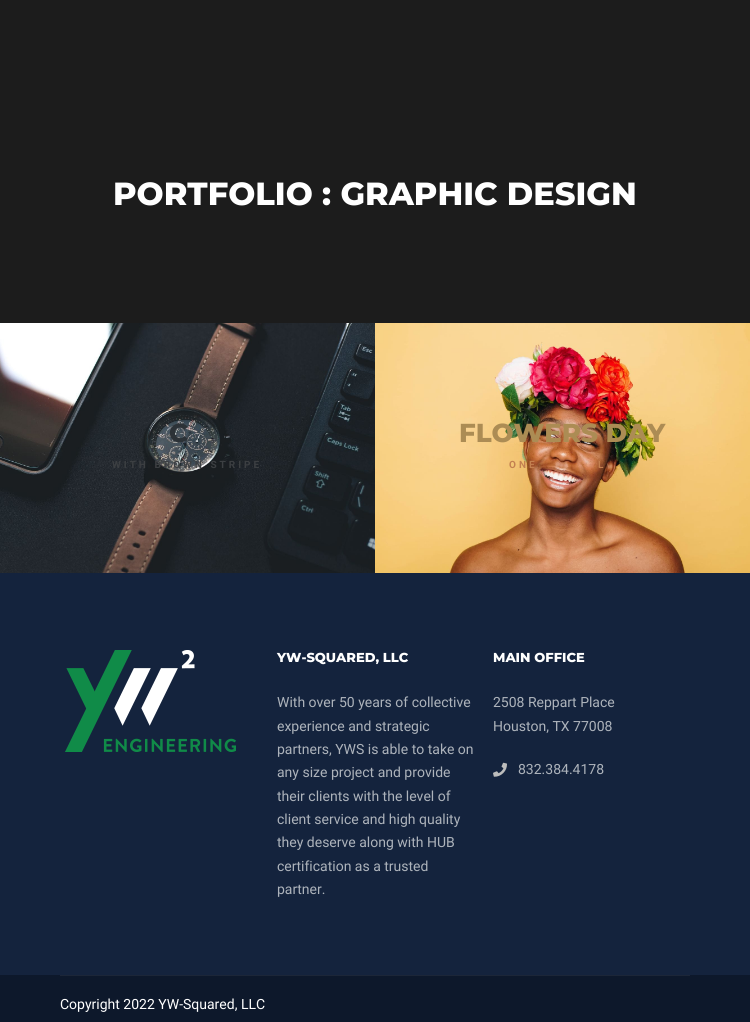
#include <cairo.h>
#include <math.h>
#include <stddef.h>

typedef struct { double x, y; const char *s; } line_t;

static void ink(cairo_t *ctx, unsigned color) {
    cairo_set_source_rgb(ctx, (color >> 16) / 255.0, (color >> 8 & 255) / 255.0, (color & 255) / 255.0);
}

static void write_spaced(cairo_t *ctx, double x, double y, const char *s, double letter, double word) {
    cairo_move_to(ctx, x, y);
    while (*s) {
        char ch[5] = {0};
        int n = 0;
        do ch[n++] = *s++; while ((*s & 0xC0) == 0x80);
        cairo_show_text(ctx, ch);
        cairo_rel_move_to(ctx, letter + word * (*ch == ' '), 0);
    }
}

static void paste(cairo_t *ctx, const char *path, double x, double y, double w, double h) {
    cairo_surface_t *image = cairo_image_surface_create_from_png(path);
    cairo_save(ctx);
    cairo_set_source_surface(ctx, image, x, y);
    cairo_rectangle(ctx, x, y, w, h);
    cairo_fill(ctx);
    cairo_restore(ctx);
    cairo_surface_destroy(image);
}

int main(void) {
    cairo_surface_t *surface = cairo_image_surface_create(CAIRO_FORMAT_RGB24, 750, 1022);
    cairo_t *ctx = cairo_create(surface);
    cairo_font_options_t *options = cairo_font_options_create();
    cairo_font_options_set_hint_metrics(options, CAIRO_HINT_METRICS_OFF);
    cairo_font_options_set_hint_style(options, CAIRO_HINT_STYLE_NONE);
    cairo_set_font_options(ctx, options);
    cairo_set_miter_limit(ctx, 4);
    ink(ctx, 0x1C1C1C);
    cairo_paint(ctx);
    cairo_select_font_face(ctx, "Montserrat ExtraBold", CAIRO_FONT_SLANT_NORMAL, CAIRO_FONT_WEIGHT_NORMAL);
    cairo_set_font_size(ctx, 32);
    ink(ctx, 0xFFFFFF);
    cairo_move_to(ctx, 113, 205);
    cairo_show_text(ctx, "PORTFOLIO : GRAPHIC DESIGN");
    paste(ctx, "media/1.png", 0, 323, 375, 250);
    cairo_set_font_size(ctx, 26);
    ink(ctx, 0x2C3237);
    cairo_move_to(ctx, 169, 442);
    cairo_show_text(ctx, "C");
    cairo_select_font_face(ctx, "Roboto", CAIRO_FONT_SLANT_NORMAL, CAIRO_FONT_WEIGHT_BOLD);
    cairo_set_font_size(ctx, 10);
    ink(ctx, 0x3C3F42);
    write_spaced(ctx, 112, 468, "WITH BROWN STRIPE", 3, 0);
    paste(ctx, "media/2.png", 375, 323, 375, 250);
    cairo_select_font_face(ctx, "Montserrat ExtraBold", CAIRO_FONT_SLANT_NORMAL, CAIRO_FONT_WEIGHT_NORMAL);
    cairo_set_font_size(ctx, 26);
    ink(ctx, 0xAC8C54);
    cairo_move_to(ctx, 459, 442);
    cairo_show_text(ctx, "FLOWERS DAY");
    cairo_select_font_face(ctx, "Roboto", CAIRO_FONT_SLANT_NORMAL, CAIRO_FONT_WEIGHT_BOLD);
    cairo_set_font_size(ctx, 10);
    ink(ctx, 0xC38050);
    write_spaced(ctx, 509, 468, "ONE", 3, 0);
    write_spaced(ctx, 598, 468, "L", 3, 0);
    ink(ctx, 0x14233D);
    cairo_rectangle(ctx, 0, 573, 750, 402);
    cairo_fill(ctx);
    paste(ctx, "media/3.png", 65, 650, 171, 102);
    cairo_select_font_face(ctx, "Montserrat ExtraBold", CAIRO_FONT_SLANT_NORMAL, CAIRO_FONT_WEIGHT_NORMAL);
    cairo_set_font_size(ctx, 13);
    ink(ctx, 0xFFFFFF);
    cairo_move_to(ctx, 277, 662);
    cairo_show_text(ctx, "YW-SQUARED, LLC");
    cairo_select_font_face(ctx, "Roboto", CAIRO_FONT_SLANT_NORMAL, CAIRO_FONT_WEIGHT_NORMAL);
    cairo_set_font_size(ctx, 14);
    ink(ctx, 0xADB3BB);
    {
        static const line_t items[] = {
            {277, 707, "With over 50 years of collective"},
            {277, 731, "experience and strategic"},
            {277, 754, "partners, YWS is able to take on"},
            {277, 777, "any size project and provide"},
            {277, 801, "their clients with the level of"},
            {277, 824, "client service and high quality"},
            {277, 847, "they deserve along with HUB"},
            {277, 871, "certification as a trusted"},
            {277, 894, "partner."},
        };
        for (size_t i = 0; i < sizeof items / sizeof *items; i++) {
            cairo_move_to(ctx, items[i].x, items[i].y);
            cairo_show_text(ctx, items[i].s);
        }
    }
    cairo_select_font_face(ctx, "Montserrat ExtraBold", CAIRO_FONT_SLANT_NORMAL, CAIRO_FONT_WEIGHT_NORMAL);
    cairo_set_font_size(ctx, 13);
    ink(ctx, 0xFFFFFF);
    cairo_move_to(ctx, 493, 662);
    cairo_show_text(ctx, "MAIN OFFICE");
    cairo_select_font_face(ctx, "Roboto", CAIRO_FONT_SLANT_NORMAL, CAIRO_FONT_WEIGHT_NORMAL);
    cairo_set_font_size(ctx, 14);
    ink(ctx, 0xADB3BB);
    cairo_move_to(ctx, 493, 707);
    cairo_show_text(ctx, "2508 Reppart Place");
    cairo_move_to(ctx, 493, 731);
    cairo_show_text(ctx, "Houston, TX 77008");
    paste(ctx, "media/4.png", 493, 762, 14, 15);
    cairo_move_to(ctx, 518, 774);
    cairo_show_text(ctx, "832.384.4178");
    ink(ctx, 0x0D182B);
    cairo_rectangle(ctx, 0, 975, 750, 47);
    cairo_fill(ctx);
    ink(ctx, 0x1C2638);
    cairo_rectangle(ctx, 60, 975, 630, 1);
    cairo_fill(ctx);
    ink(ctx, 0xFFFFFF);
    cairo_move_to(ctx, 60, 1009);
    cairo_show_text(ctx, "Copyright 2022 YW-Squared, LLC");
    cairo_surface_write_to_png(surface, "image.png");
    cairo_font_options_destroy(options);
    cairo_destroy(ctx);
    cairo_surface_destroy(surface);
    return 0;
}
